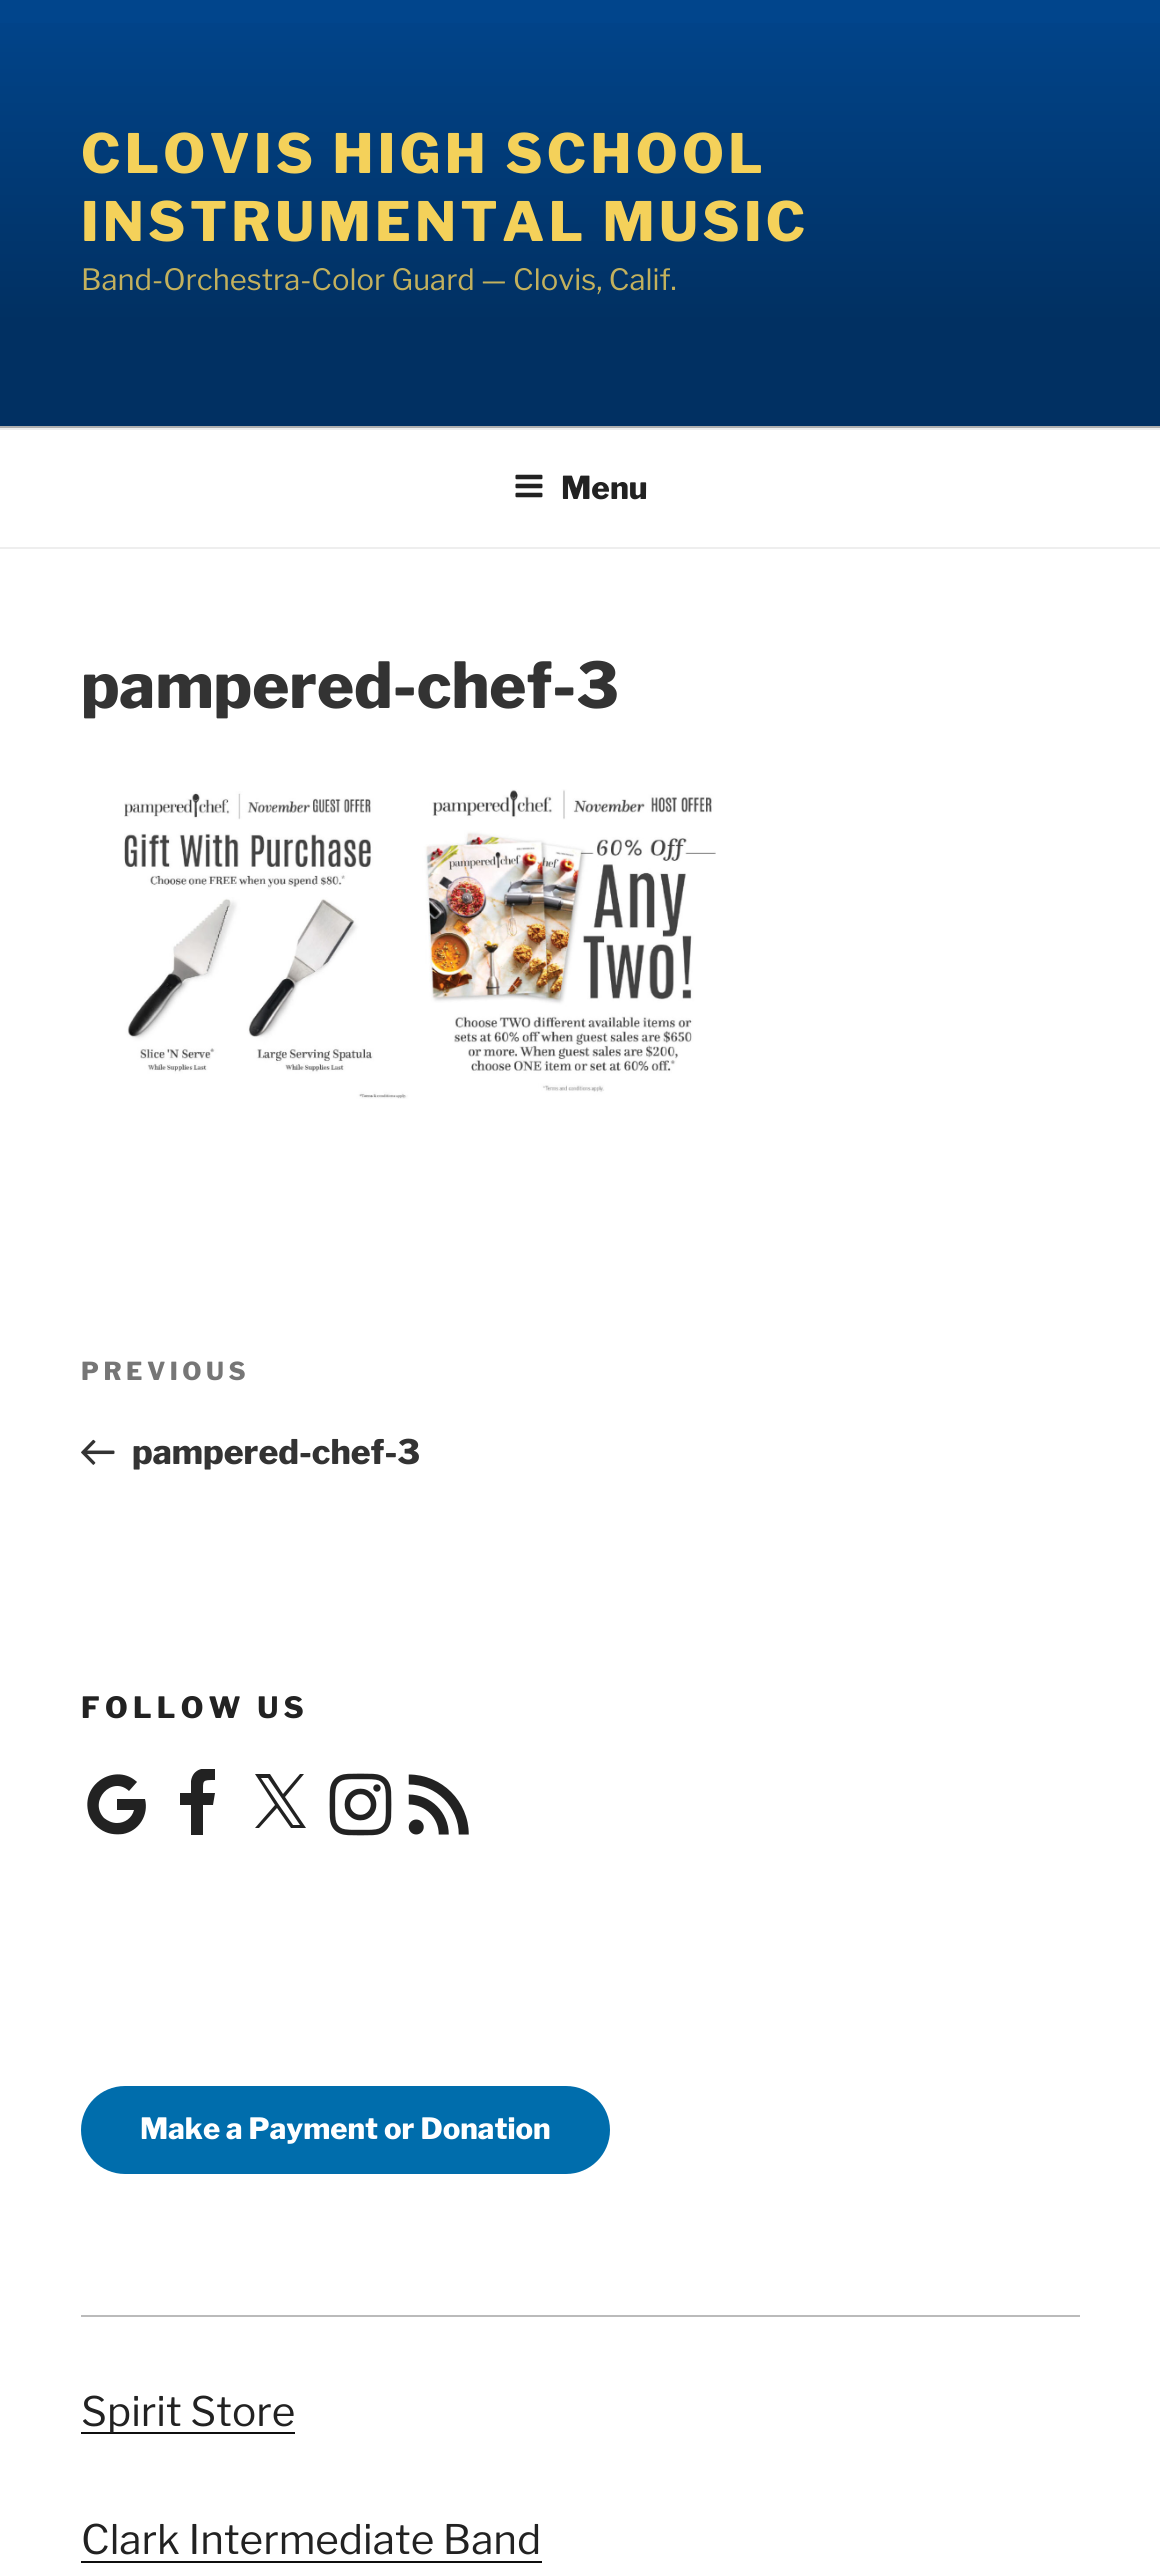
#include <cairo.h>
#include <math.h>
#include <stddef.h>


static void ink(cairo_t *ctx, unsigned color) {
    cairo_set_source_rgb(ctx, (color >> 16) / 255.0, (color >> 8 & 255) / 255.0, (color & 255) / 255.0);
}

static void write_spaced(cairo_t *ctx, double x, double y, const char *s, double letter, double word) {
    cairo_move_to(ctx, x, y);
    while (*s) {
        char ch[5] = {0};
        int n = 0;
        do ch[n++] = *s++; while ((*s & 0xC0) == 0x80);
        cairo_show_text(ctx, ch);
        cairo_rel_move_to(ctx, letter + word * (*ch == ' '), 0);
    }
}

static void round_path(cairo_t *ctx, double x, double y, double w, double h, double r) {
    cairo_new_sub_path(ctx);
    cairo_arc(ctx, x + w - r, y + h - r, r, 0, M_PI / 2);
    cairo_arc(ctx, x + r, y + h - r, r, M_PI / 2, M_PI);
    cairo_arc(ctx, x + r, y + r, r, M_PI, 1.5 * M_PI);
    cairo_arc(ctx, x + w - r, y + r, r, 1.5 * M_PI, 2 * M_PI);
    cairo_close_path(ctx);
}

static void paste(cairo_t *ctx, const char *path, double x, double y, double w, double h) {
    cairo_surface_t *image = cairo_image_surface_create_from_png(path);
    cairo_save(ctx);
    cairo_set_source_surface(ctx, image, x, y);
    cairo_rectangle(ctx, x, y, w, h);
    cairo_fill(ctx);
    cairo_restore(ctx);
    cairo_surface_destroy(image);
}

int main(void) {
    cairo_surface_t *surface = cairo_image_surface_create(CAIRO_FORMAT_RGB24, 1160, 2568);
    cairo_t *ctx = cairo_create(surface);
    cairo_font_options_t *options = cairo_font_options_create();
    cairo_font_options_set_hint_metrics(options, CAIRO_HINT_METRICS_OFF);
    cairo_font_options_set_hint_style(options, CAIRO_HINT_STYLE_NONE);
    cairo_set_font_options(ctx, options);
    cairo_set_miter_limit(ctx, 4);
    cairo_pattern_t *gradient;
    ink(ctx, 0xFFFFFF);
    cairo_paint(ctx);
    ink(ctx, 0xFAFAFA);
    cairo_rectangle(ctx, 0, 426, 1160, 2);
    cairo_fill(ctx);
    ink(ctx, 0x01458C);
    cairo_rectangle(ctx, 0, 0, 1160, 426);
    cairo_fill(ctx);
    gradient = cairo_pattern_create_linear(581, 0, 581, 428);
    cairo_pattern_add_color_stop_rgba(gradient, 0, 0, 0, 0, 0);
    cairo_pattern_add_color_stop_rgba(gradient, 0.75, 0, 0, 0, 0.3);
    cairo_pattern_add_color_stop_rgba(gradient, 1, 0, 0, 0, 0.3);
    cairo_set_source(ctx, gradient);
    cairo_pattern_destroy(gradient);
    cairo_rectangle(ctx, 0, 23, 1160, 405);
    cairo_fill(ctx);
    cairo_select_font_face(ctx, "Libre Franklin Thin", CAIRO_FONT_SLANT_NORMAL, CAIRO_FONT_WEIGHT_NORMAL);
    cairo_set_font_size(ctx, 54);
    ink(ctx, 0xF4D15A);
    write_spaced(ctx, 81, 173, "CLOVIS HIGH SCHOOL", 4.3, 0);
    write_spaced(ctx, 81, 241, "INSTRUMENTAL MUSIC", 4.3, 0);
    cairo_select_font_face(ctx, "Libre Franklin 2 Thin", CAIRO_FONT_SLANT_NORMAL, CAIRO_FONT_WEIGHT_NORMAL);
    cairo_set_font_size(ctx, 29.25);
    ink(ctx, 0xC3B15D);
    cairo_move_to(ctx, 81, 290);
    cairo_show_text(ctx, "Band-Orchestra-Color Guard — Clovis, Calif.");
    ink(ctx, 0xEEEEEE);
    cairo_rectangle(ctx, 0, 428, 1160, 2);
    cairo_fill(ctx);
    cairo_rectangle(ctx, 0, 547, 1160, 2);
    cairo_fill(ctx);
    paste(ctx, "media/1.png", 515, 474, 28, 24);
    cairo_select_font_face(ctx, "Libre Franklin Thin", CAIRO_FONT_SLANT_NORMAL, CAIRO_FONT_WEIGHT_NORMAL);
    cairo_set_font_size(ctx, 31.5);
    ink(ctx, 0x222222);
    cairo_move_to(ctx, 561, 499);
    cairo_show_text(ctx, "Menu");
    cairo_set_font_size(ctx, 63);
    ink(ctx, 0x333333);
    cairo_move_to(ctx, 81, 708);
    cairo_show_text(ctx, "pampered-chef-3");
    paste(ctx, "media/2.png", 124, 789, 592, 310);
    cairo_set_font_size(ctx, 24.75);
    ink(ctx, 0x767676);
    write_spaced(ctx, 81, 1380, "PREVIOUS", 4.5, 0);
    paste(ctx, "media/3.png", 81, 1439, 34, 26);
    cairo_set_font_size(ctx, 33.75);
    ink(ctx, 0x333333);
    cairo_move_to(ctx, 132, 1464);
    cairo_show_text(ctx, "pampered-chef-3");
    cairo_set_font_size(ctx, 29.25);
    ink(ctx, 0x222222);
    write_spaced(ctx, 81, 1718, "FOLLOW US", 5.25, 0);
    cairo_new_path(ctx);
    cairo_move_to(ctx, 117, 1799);
    cairo_line_to(ctx, 117, 1810);
    cairo_line_to(ctx, 134, 1810);
    cairo_curve_to(ctx, 132, 1818, 125, 1823, 117, 1823);
    cairo_curve_to(ctx, 112, 1823, 108, 1821, 104, 1818);
    cairo_curve_to(ctx, 88, 1801, 112, 1775, 129, 1791);
    cairo_line_to(ctx, 137, 1782);
    cairo_curve_to(ctx, 117, 1763, 82, 1782, 88, 1811);
    cairo_curve_to(ctx, 89, 1818, 94, 1825, 100, 1829);
    cairo_curve_to(ctx, 107, 1834, 115, 1835, 123, 1834);
    cairo_curve_to(ctx, 139, 1831, 149, 1815, 145, 1799);
    cairo_close_path(ctx);
    cairo_fill(ctx);
    cairo_save(ctx);
    cairo_rectangle(ctx, 162, 1769, 72, 72);
    cairo_clip(ctx);
    cairo_new_path(ctx);
    cairo_move_to(ctx, 215, 1769);
    cairo_line_to(ctx, 215, 1780);
    cairo_curve_to(ctx, 202, 1780, 203, 1780, 203, 1793);
    cairo_line_to(ctx, 215, 1793);
    cairo_line_to(ctx, 213, 1805);
    cairo_line_to(ctx, 203, 1805);
    cairo_line_to(ctx, 203, 1835);
    cairo_line_to(ctx, 191, 1835);
    cairo_line_to(ctx, 191, 1805);
    cairo_line_to(ctx, 180, 1805);
    cairo_line_to(ctx, 180, 1793);
    cairo_line_to(ctx, 191, 1793);
    cairo_line_to(ctx, 191, 1781);
    cairo_curve_to(ctx, 193, 1768, 205, 1767, 215, 1769);
    cairo_close_path(ctx);
    cairo_fill(ctx);
    cairo_restore(ctx);
    cairo_new_path(ctx);
    cairo_move_to(ctx, 285, 1797);
    cairo_line_to(ctx, 304, 1774);
    cairo_line_to(ctx, 300, 1774);
    cairo_line_to(ctx, 283, 1794);
    cairo_line_to(ctx, 270, 1774);
    cairo_line_to(ctx, 255, 1774);
    cairo_line_to(ctx, 275, 1805);
    cairo_line_to(ctx, 255, 1828);
    cairo_line_to(ctx, 259, 1828);
    cairo_line_to(ctx, 277, 1808);
    cairo_line_to(ctx, 291, 1828);
    cairo_line_to(ctx, 306, 1828);
    cairo_close_path(ctx);
    cairo_move_to(ctx, 279, 1805);
    cairo_line_to(ctx, 261, 1778);
    cairo_line_to(ctx, 268, 1778);
    cairo_line_to(ctx, 300, 1825);
    cairo_line_to(ctx, 293, 1825);
    cairo_close_path(ctx);
    cairo_fill(ctx);
    paste(ctx, "media/4.png", 329, 1773, 63, 63);
    paste(ctx, "media/5.png", 408, 1774, 61, 61);
    ink(ctx, 0x006DAC);
    round_path(ctx, 81, 2086, 529, 88, 44);
    cairo_fill(ctx);
    ink(ctx, 0xFFFFFF);
    cairo_move_to(ctx, 140, 2139);
    cairo_show_text(ctx, "Make a Payment or Donation");
    ink(ctx, 0xBBBBBB);
    cairo_rectangle(ctx, 81, 2315, 999, 2);
    cairo_fill(ctx);
    ink(ctx, 0x0F0F0F);
    cairo_rectangle(ctx, 81, 2432, 214, 2);
    cairo_fill(ctx);
    cairo_select_font_face(ctx, "Libre Franklin 2 Thin", CAIRO_FONT_SLANT_NORMAL, CAIRO_FONT_WEIGHT_NORMAL);
    cairo_set_font_size(ctx, 40.5);
    ink(ctx, 0x222222);
    cairo_move_to(ctx, 81, 2426);
    cairo_show_text(ctx, "Spirit Store");
    cairo_move_to(ctx, 81, 2554);
    cairo_show_text(ctx, "Clark Intermediate Band");
    ink(ctx, 0x0F0F0F);
    cairo_rectangle(ctx, 81, 2561, 461, 2);
    cairo_fill(ctx);
    cairo_surface_write_to_png(surface, "image.png");
    cairo_font_options_destroy(options);
    cairo_destroy(ctx);
    cairo_surface_destroy(surface);
    return 0;
}
